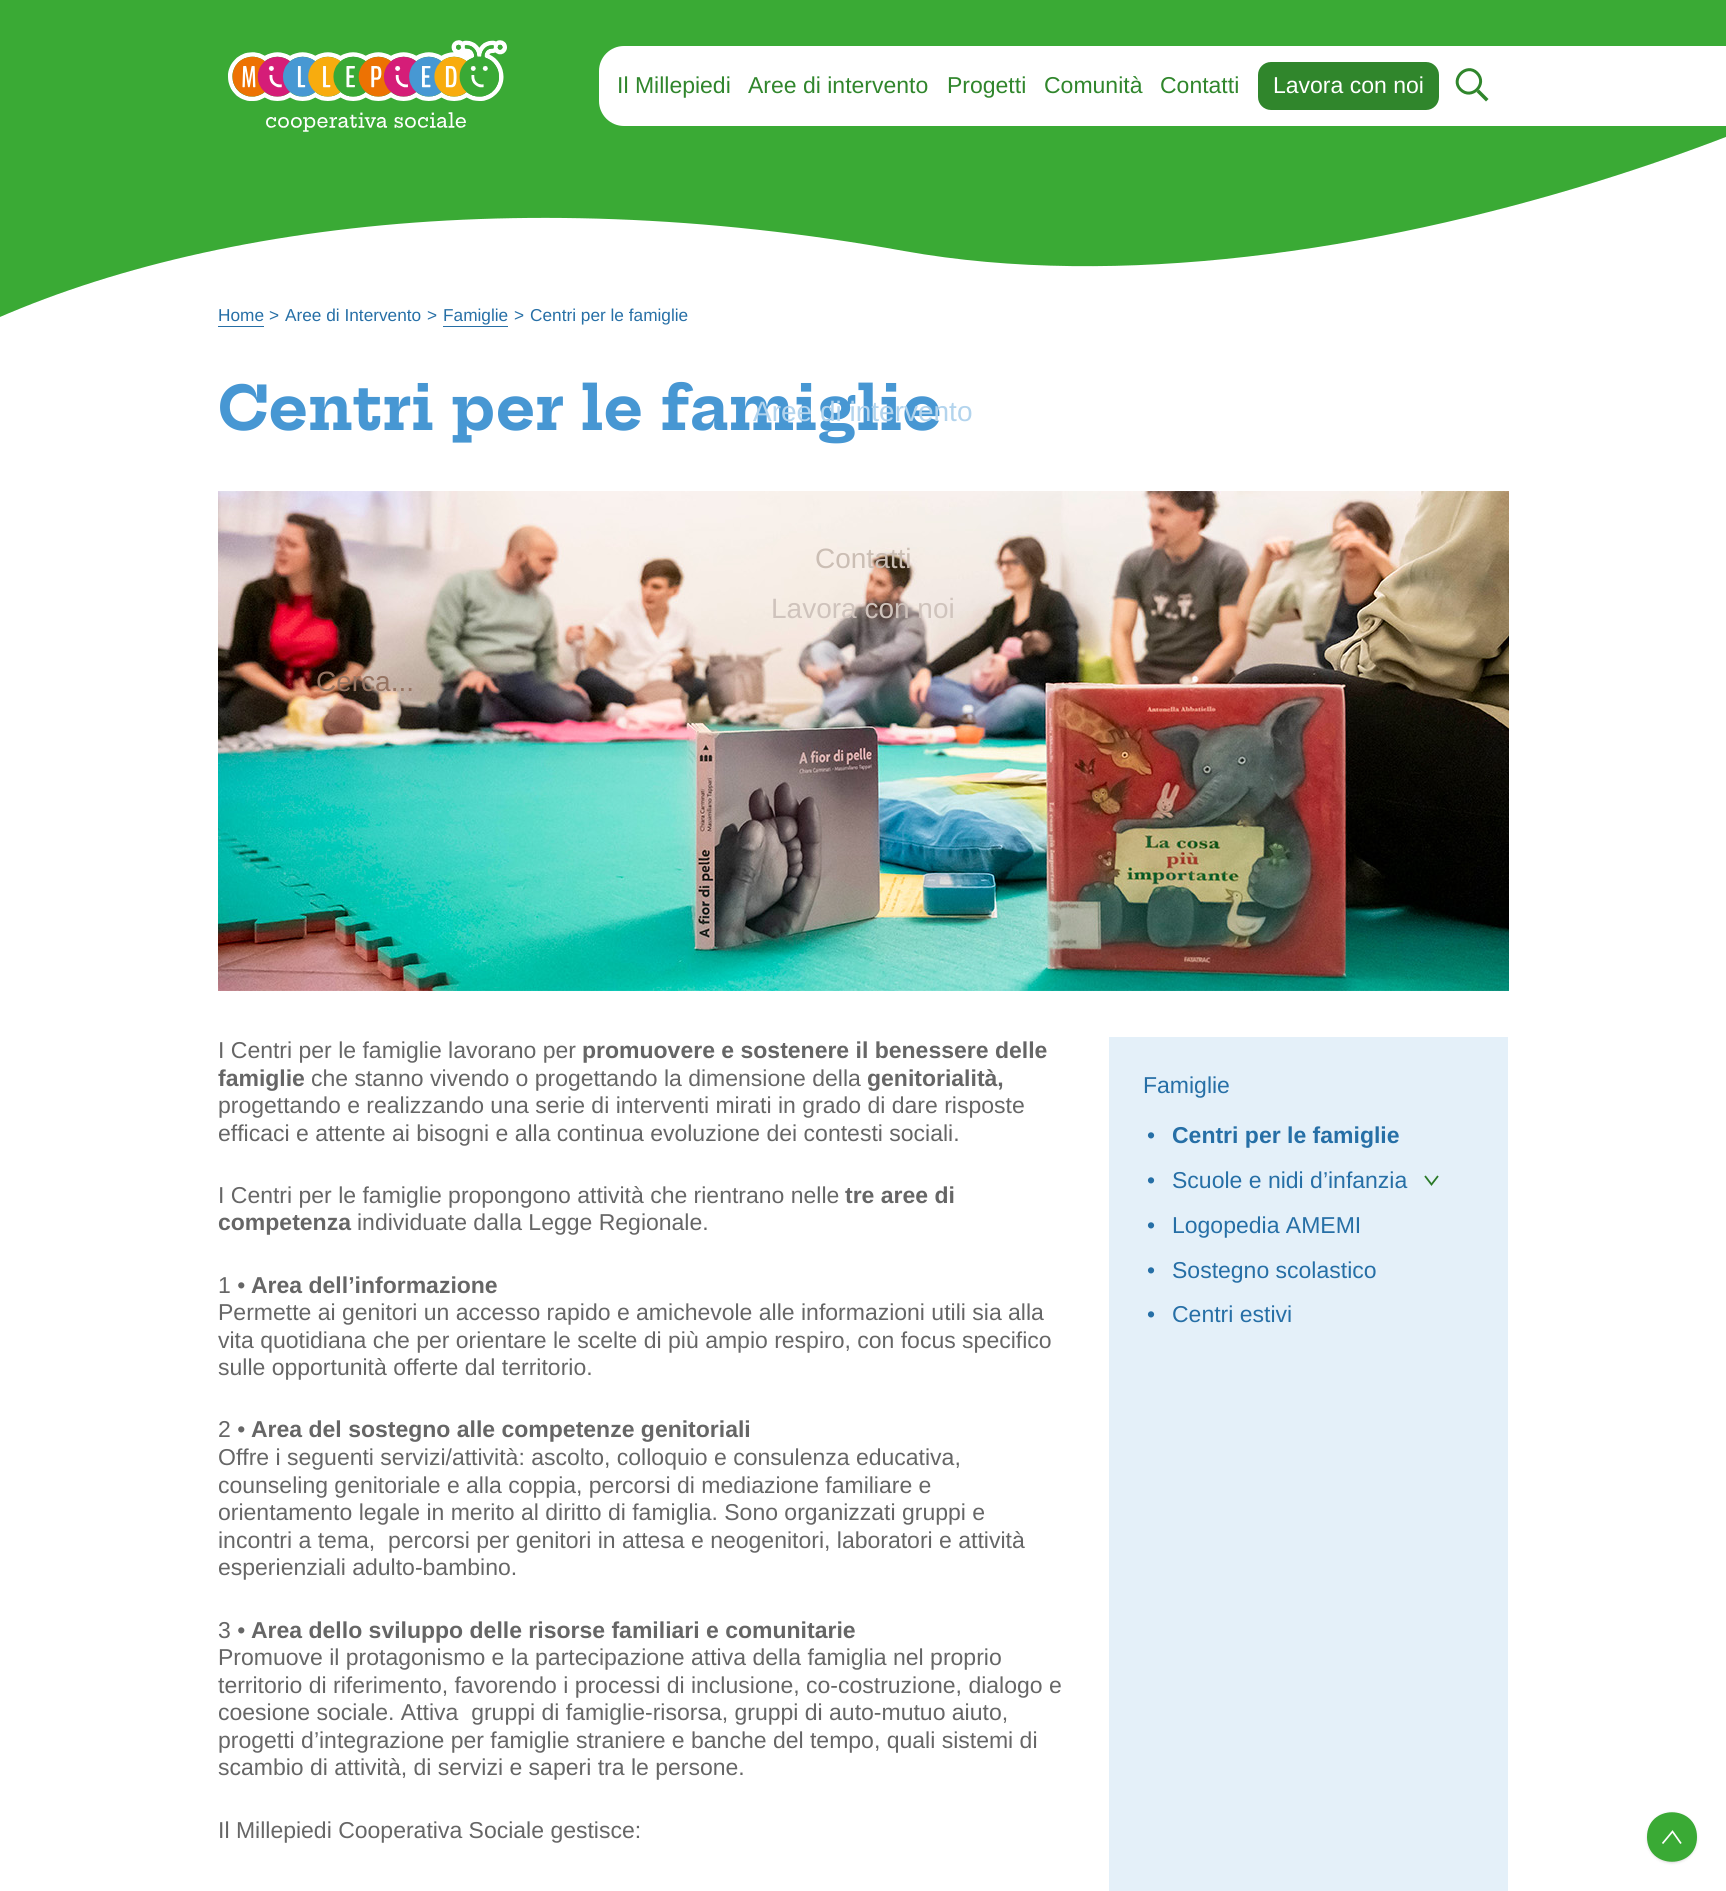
#include <cairo.h>
#include <math.h>
#include <stddef.h>

typedef struct { double x, y; const char *s; } line_t;

static void ink(cairo_t *ctx, unsigned color) {
    cairo_set_source_rgb(ctx, (color >> 16) / 255.0, (color >> 8 & 255) / 255.0, (color & 255) / 255.0);
}

static void round_path(cairo_t *ctx, double x, double y, double w, double h, double r) {
    cairo_new_sub_path(ctx);
    cairo_arc(ctx, x + w - r, y + h - r, r, 0, M_PI / 2);
    cairo_arc(ctx, x + r, y + h - r, r, M_PI / 2, M_PI);
    cairo_arc(ctx, x + r, y + r, r, M_PI, 1.5 * M_PI);
    cairo_arc(ctx, x + w - r, y + r, r, 1.5 * M_PI, 2 * M_PI);
    cairo_close_path(ctx);
}

static void blur_box(cairo_t *ctx, double x, double y, double w, double h, double r, double blur, double alpha) {
    cairo_push_group_with_content(ctx, CAIRO_CONTENT_ALPHA);
    cairo_set_operator(ctx, CAIRO_OPERATOR_SOURCE);
    for (int i = 15; i >= -15 && fmin(w, h) + blur * i / 3 > 0; i -= 2) {
        double e = blur * i / 6;
        cairo_set_source_rgba(ctx, 0, 0, 0, alpha * erfc((i - 1) / 8.5) / 2);
        round_path(ctx, x - e, y - e, w + 2 * e, h + 2 * e, fmax(0, fmin(r + e + blur * .6, fmin(w, h) / 2 + e)));
        cairo_fill(ctx);
    }
    cairo_pattern_t *soft = cairo_pop_group(ctx);
    cairo_mask(ctx, soft);
    cairo_pattern_destroy(soft);
}

static void paste(cairo_t *ctx, const char *path, double x, double y, double w, double h) {
    cairo_surface_t *image = cairo_image_surface_create_from_png(path);
    cairo_save(ctx);
    cairo_set_source_surface(ctx, image, x, y);
    cairo_rectangle(ctx, x, y, w, h);
    cairo_fill(ctx);
    cairo_restore(ctx);
    cairo_surface_destroy(image);
}

int main(void) {
    cairo_surface_t *surface = cairo_image_surface_create(CAIRO_FORMAT_RGB24, 1726, 1891);
    cairo_t *ctx = cairo_create(surface);
    cairo_font_options_t *options = cairo_font_options_create();
    cairo_font_options_set_hint_metrics(options, CAIRO_HINT_METRICS_OFF);
    cairo_font_options_set_hint_style(options, CAIRO_HINT_STYLE_NONE);
    cairo_set_font_options(ctx, options);
    cairo_set_miter_limit(ctx, 4);
    ink(ctx, 0xFFFFFF);
    cairo_paint(ctx);
    cairo_select_font_face(ctx, "Liberation Sans", CAIRO_FONT_SLANT_NORMAL, CAIRO_FONT_WEIGHT_NORMAL);
    cairo_set_font_size(ctx, 17.25);
    ink(ctx, 0x266FA6);
    {
        static const line_t items[] = {
            {218, 321, "Home"},
            {269, 321, ">"},
            {285, 321, "Aree di Intervento"},
            {427, 321, ">"},
            {443, 321, "Famiglie"},
            {514, 321, ">"},
            {530, 321, "Centri per le famiglie"},
        };
        for (size_t i = 0; i < sizeof items / sizeof *items; i++) {
            cairo_move_to(ctx, items[i].x, items[i].y);
            cairo_show_text(ctx, items[i].s);
        }
    }
    ink(ctx, 0x3AAA35);
    cairo_new_path(ctx);
    cairo_move_to(ctx, 904, 251);
    cairo_curve_to(ctx, 506, 179, 152, 230, -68, 350);
    cairo_line_to(ctx, -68, -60);
    cairo_line_to(ctx, 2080, -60);
    cairo_curve_to(ctx, 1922, 95, 1334, 328, 904, 251);
    cairo_close_path(ctx);
    cairo_fill(ctx);
    paste(ctx, "media/1.png", 228, 40, 279, 92);
    ink(ctx, 0xFFFFFF);
    round_path(ctx, 599, 46, 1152, 80, 25);
    cairo_fill(ctx);
    cairo_set_font_size(ctx, 23);
    ink(ctx, 0x30862C);
    {
        static const line_t items[] = {
            {617, 93, "Il Millepiedi"},
            {748, 93, "Aree di intervento"},
            {947, 93, "Progetti"},
            {1044, 93, "Comunità"},
            {1160, 93, "Contatti"},
        };
        for (size_t i = 0; i < sizeof items / sizeof *items; i++) {
            cairo_move_to(ctx, items[i].x, items[i].y);
            cairo_show_text(ctx, items[i].s);
        }
    }
    round_path(ctx, 1258, 62, 181, 48, 13);
    cairo_fill(ctx);
    ink(ctx, 0xFFFFFF);
    cairo_move_to(ctx, 1273, 93);
    cairo_show_text(ctx, "Lavora con noi");
    ink(ctx, 0x30862C);
    cairo_new_path(ctx);
    cairo_move_to(ctx, 1479, 89.5);
    cairo_line_to(ctx, 1488.5, 99);
    cairo_line_to(ctx, 1486, 101.5);
    cairo_line_to(ctx, 1476.5, 92);
    cairo_close_path(ctx);
    cairo_fill(ctx);
    cairo_new_path(ctx);
    cairo_move_to(ctx, 1477, 73);
    cairo_curve_to(ctx, 1488, 84, 1471.5, 100.5, 1460.5, 89.5);
    cairo_curve_to(ctx, 1450, 79, 1466.5, 62.5, 1477, 73);
    cairo_close_path(ctx);
    cairo_set_line_width(ctx, 3);
    cairo_stroke(ctx);
    ink(ctx, 0x266FA6);
    cairo_rectangle(ctx, 218, 326, 46, 1);
    cairo_fill(ctx);
    cairo_rectangle(ctx, 443, 326, 65, 1);
    cairo_fill(ctx);
    cairo_select_font_face(ctx, "Hepta Slab", CAIRO_FONT_SLANT_NORMAL, CAIRO_FONT_WEIGHT_BOLD);
    cairo_set_font_size(ctx, 60);
    ink(ctx, 0x4797D3);
    cairo_move_to(ctx, 218, 430);
    cairo_show_text(ctx, "Centri per le famiglie");
    paste(ctx, "media/2.png", 218, 491, 1291, 500);
    cairo_select_font_face(ctx, "Liberation Sans", CAIRO_FONT_SLANT_NORMAL, CAIRO_FONT_WEIGHT_NORMAL);
    cairo_set_font_size(ctx, 23);
    ink(ctx, 0x666666);
    cairo_move_to(ctx, 218, 1058);
    cairo_show_text(ctx, "I Centri per le famiglie lavorano per");
    cairo_select_font_face(ctx, "Liberation Sans", CAIRO_FONT_SLANT_NORMAL, CAIRO_FONT_WEIGHT_BOLD);
    cairo_move_to(ctx, 582, 1058);
    cairo_show_text(ctx, "promuovere e sostenere il benessere delle");
    cairo_move_to(ctx, 218, 1086);
    cairo_show_text(ctx, "famiglie");
    cairo_select_font_face(ctx, "Liberation Sans", CAIRO_FONT_SLANT_NORMAL, CAIRO_FONT_WEIGHT_NORMAL);
    cairo_move_to(ctx, 311, 1086);
    cairo_show_text(ctx, "che stanno vivendo o progettando la dimensione della");
    cairo_select_font_face(ctx, "Liberation Sans", CAIRO_FONT_SLANT_NORMAL, CAIRO_FONT_WEIGHT_BOLD);
    cairo_move_to(ctx, 867, 1086);
    cairo_show_text(ctx, "genitorialità,");
    cairo_select_font_face(ctx, "Liberation Sans", CAIRO_FONT_SLANT_NORMAL, CAIRO_FONT_WEIGHT_NORMAL);
    {
        static const line_t items[] = {
            {218, 1113, "progettando e realizzando una serie di interventi mirati in grado di dare risposte"},
            {218, 1141, "efficaci e attente ai bisogni e alla continua evoluzione dei contesti sociali."},
            {218, 1203, "I Centri per le famiglie propongono attività che rientrano nelle"},
        };
        for (size_t i = 0; i < sizeof items / sizeof *items; i++) {
            cairo_move_to(ctx, items[i].x, items[i].y);
            cairo_show_text(ctx, items[i].s);
        }
    }
    cairo_select_font_face(ctx, "Liberation Sans", CAIRO_FONT_SLANT_NORMAL, CAIRO_FONT_WEIGHT_BOLD);
    cairo_move_to(ctx, 845, 1203);
    cairo_show_text(ctx, "tre aree di");
    cairo_move_to(ctx, 218, 1230);
    cairo_show_text(ctx, "competenza");
    cairo_select_font_face(ctx, "Liberation Sans", CAIRO_FONT_SLANT_NORMAL, CAIRO_FONT_WEIGHT_NORMAL);
    cairo_move_to(ctx, 357, 1230);
    cairo_show_text(ctx, "individuate dalla Legge Regionale.");
    cairo_move_to(ctx, 218, 1293);
    cairo_show_text(ctx, "1 •");
    cairo_select_font_face(ctx, "Liberation Sans", CAIRO_FONT_SLANT_NORMAL, CAIRO_FONT_WEIGHT_BOLD);
    cairo_move_to(ctx, 251, 1293);
    cairo_show_text(ctx, "Area dell’informazione");
    cairo_select_font_face(ctx, "Liberation Sans", CAIRO_FONT_SLANT_NORMAL, CAIRO_FONT_WEIGHT_NORMAL);
    {
        static const line_t items[] = {
            {218, 1320, "Permette ai genitori un accesso rapido e amichevole alle informazioni utili sia alla"},
            {218, 1348, "vita quotidiana che per orientare le scelte di più ampio respiro, con focus specifico"},
            {218, 1375, "sulle opportunità offerte dal territorio."},
            {218, 1437, "2 •"},
        };
        for (size_t i = 0; i < sizeof items / sizeof *items; i++) {
            cairo_move_to(ctx, items[i].x, items[i].y);
            cairo_show_text(ctx, items[i].s);
        }
    }
    cairo_select_font_face(ctx, "Liberation Sans", CAIRO_FONT_SLANT_NORMAL, CAIRO_FONT_WEIGHT_BOLD);
    cairo_move_to(ctx, 251, 1437);
    cairo_show_text(ctx, "Area del sostegno alle competenze genitoriali");
    cairo_select_font_face(ctx, "Liberation Sans", CAIRO_FONT_SLANT_NORMAL, CAIRO_FONT_WEIGHT_NORMAL);
    {
        static const line_t items[] = {
            {218, 1465, "Offre i seguenti servizi/attività: ascolto, colloquio e consulenza educativa,"},
            {218, 1493, "counseling genitoriale e alla coppia, percorsi di mediazione familiare e"},
            {218, 1520, "orientamento legale in merito al diritto di famiglia. Sono organizzati gruppi e"},
            {218, 1548, "incontri a tema,  percorsi per genitori in attesa e neogenitori, laboratori e attività"},
            {218, 1575, "esperienziali adulto-bambino."},
            {218, 1638, "3 •"},
        };
        for (size_t i = 0; i < sizeof items / sizeof *items; i++) {
            cairo_move_to(ctx, items[i].x, items[i].y);
            cairo_show_text(ctx, items[i].s);
        }
    }
    cairo_select_font_face(ctx, "Liberation Sans", CAIRO_FONT_SLANT_NORMAL, CAIRO_FONT_WEIGHT_BOLD);
    cairo_move_to(ctx, 251, 1638);
    cairo_show_text(ctx, "Area dello sviluppo delle risorse familiari e comunitarie");
    cairo_select_font_face(ctx, "Liberation Sans", CAIRO_FONT_SLANT_NORMAL, CAIRO_FONT_WEIGHT_NORMAL);
    {
        static const line_t items[] = {
            {218, 1665, "Promuove il protagonismo e la partecipazione attiva della famiglia nel proprio"},
            {218, 1693, "territorio di riferimento, favorendo i processi di inclusione, co-costruzione, dialogo e"},
            {218, 1720, "coesione sociale. Attiva  gruppi di famiglie-risorsa, gruppi di auto-mutuo aiuto,"},
            {218, 1748, "progetti d’integrazione per famiglie straniere e banche del tempo, quali sistemi di"},
            {218, 1775, "scambio di attività, di servizi e saperi tra le persone."},
            {218, 1838, "Il Millepiedi Cooperativa Sociale gestisce:"},
        };
        for (size_t i = 0; i < sizeof items / sizeof *items; i++) {
            cairo_move_to(ctx, items[i].x, items[i].y);
            cairo_show_text(ctx, items[i].s);
        }
    }
    ink(ctx, 0xE4F0F9);
    cairo_rectangle(ctx, 1109, 1037, 399, 854);
    cairo_fill(ctx);
    ink(ctx, 0x266FA6);
    cairo_move_to(ctx, 1143, 1093);
    cairo_show_text(ctx, "Famiglie");
    cairo_move_to(ctx, 1147, 1143);
    cairo_show_text(ctx, "•");
    cairo_select_font_face(ctx, "Liberation Sans", CAIRO_FONT_SLANT_NORMAL, CAIRO_FONT_WEIGHT_BOLD);
    cairo_move_to(ctx, 1172, 1143);
    cairo_show_text(ctx, "Centri per le famiglie");
    cairo_select_font_face(ctx, "Liberation Sans", CAIRO_FONT_SLANT_NORMAL, CAIRO_FONT_WEIGHT_NORMAL);
    cairo_move_to(ctx, 1147, 1188);
    cairo_show_text(ctx, "•");
    cairo_move_to(ctx, 1172, 1188);
    cairo_show_text(ctx, "Scuole e nidi d’infanzia");
    cairo_new_path(ctx);
    cairo_move_to(ctx, 1438, 1176);
    cairo_line_to(ctx, 1431.5, 1184.5);
    cairo_line_to(ctx, 1425, 1176);
    ink(ctx, 0x2A7927);
    cairo_set_line_width(ctx, 1.8);
    cairo_stroke(ctx);
    ink(ctx, 0x266FA6);
    {
        static const line_t items[] = {
            {1147, 1233, "•"},
            {1172, 1233, "Logopedia AMEMI"},
            {1147, 1278, "•"},
            {1172, 1278, "Sostegno scolastico"},
            {1147, 1322, "•"},
            {1172, 1322, "Centri estivi"},
        };
        for (size_t i = 0; i < sizeof items / sizeof *items; i++) {
            cairo_move_to(ctx, items[i].x, items[i].y);
            cairo_show_text(ctx, items[i].s);
        }
    }
    cairo_set_font_size(ctx, 28);
    ink(ctx, 0xB3D4ED);
    cairo_move_to(ctx, 753, 421);
    cairo_show_text(ctx, "Aree di intervento");
    ink(ctx, 0xCBBEB4);
    cairo_move_to(ctx, 815, 568);
    cairo_show_text(ctx, "Contatti");
    ink(ctx, 0xCFC3BC);
    cairo_move_to(ctx, 771, 618);
    cairo_show_text(ctx, "Lavora con noi");
    ink(ctx, 0x967462);
    cairo_move_to(ctx, 316, 691);
    cairo_show_text(ctx, "Cerca...");
    ink(ctx, 0x000000);
    blur_box(ctx, 1648, 1814, 48, 48, 24, 1, 0.1);
    blur_box(ctx, 1647, 1813, 50, 50, 25, 1.5, 0.1);
    ink(ctx, 0x3AAA35);
    cairo_new_path(ctx);
    cairo_move_to(ctx, 1647, 1837);
    cairo_curve_to(ctx, 1647, 1804, 1697, 1804, 1697, 1837);
    cairo_curve_to(ctx, 1697, 1870, 1647, 1870, 1647, 1837);
    cairo_close_path(ctx);
    cairo_fill(ctx);
    cairo_new_path(ctx);
    cairo_move_to(ctx, 1662.5, 1843.5);
    cairo_line_to(ctx, 1672.5, 1831.5);
    cairo_line_to(ctx, 1681, 1843.5);
    ink(ctx, 0xFFFFFF);
    cairo_set_line_width(ctx, 1.7);
    cairo_stroke(ctx);
    cairo_surface_write_to_png(surface, "image.png");
    cairo_font_options_destroy(options);
    cairo_destroy(ctx);
    cairo_surface_destroy(surface);
    return 0;
}
